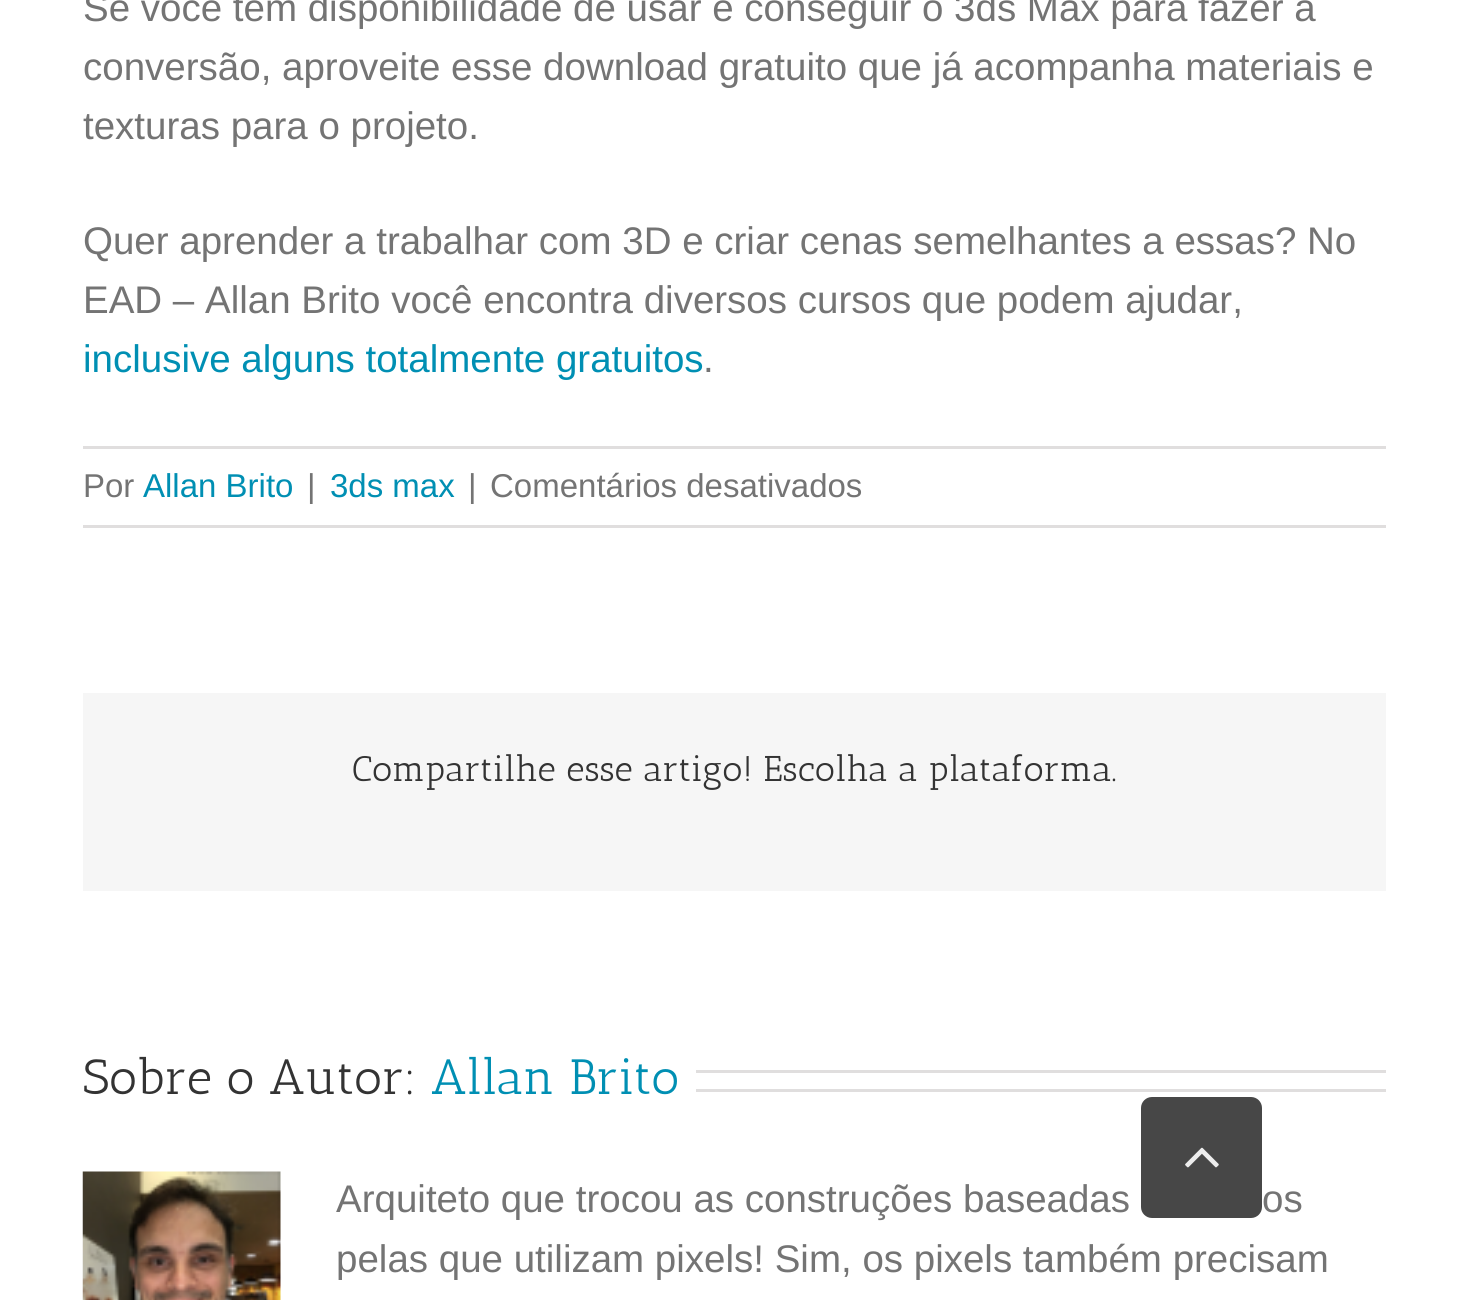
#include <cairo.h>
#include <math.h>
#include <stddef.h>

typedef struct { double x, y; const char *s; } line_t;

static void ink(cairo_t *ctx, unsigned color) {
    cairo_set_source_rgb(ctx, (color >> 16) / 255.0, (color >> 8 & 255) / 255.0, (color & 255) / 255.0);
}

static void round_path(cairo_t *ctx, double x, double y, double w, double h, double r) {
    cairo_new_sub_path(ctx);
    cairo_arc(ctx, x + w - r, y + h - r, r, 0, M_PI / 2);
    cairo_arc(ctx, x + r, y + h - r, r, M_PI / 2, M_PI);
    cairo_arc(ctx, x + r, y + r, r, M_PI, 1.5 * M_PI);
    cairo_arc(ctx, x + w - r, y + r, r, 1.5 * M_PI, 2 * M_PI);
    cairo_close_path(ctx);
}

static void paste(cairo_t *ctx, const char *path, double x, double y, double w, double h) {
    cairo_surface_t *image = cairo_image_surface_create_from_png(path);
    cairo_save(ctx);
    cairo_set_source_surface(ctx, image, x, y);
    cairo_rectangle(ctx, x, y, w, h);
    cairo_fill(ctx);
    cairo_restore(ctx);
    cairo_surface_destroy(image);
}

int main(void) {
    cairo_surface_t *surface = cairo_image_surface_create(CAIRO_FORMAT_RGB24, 1468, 1300);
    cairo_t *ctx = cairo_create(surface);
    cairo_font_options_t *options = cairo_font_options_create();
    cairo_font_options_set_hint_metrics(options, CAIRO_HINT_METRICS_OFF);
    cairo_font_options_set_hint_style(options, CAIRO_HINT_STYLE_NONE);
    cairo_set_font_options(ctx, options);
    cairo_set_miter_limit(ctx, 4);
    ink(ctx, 0xFFFFFF);
    cairo_paint(ctx);
    cairo_select_font_face(ctx, "Liberation Sans", CAIRO_FONT_SLANT_NORMAL, CAIRO_FONT_WEIGHT_NORMAL);
    cairo_set_font_size(ctx, 38.5);
    ink(ctx, 0x747474);
    {
        static const line_t items[] = {
            {83, 21, "Se você tem disponibilidade de usar e conseguir o 3ds Max para fazer a"},
            {83, 80, "conversão, aproveite esse download gratuito que já acompanha materiais e"},
            {83, 139, "texturas para o projeto."},
            {83, 254, "Quer aprender a trabalhar com 3D e criar cenas semelhantes a essas? No"},
            {83, 313, "EAD – Allan Brito você encontra diversos cursos que podem ajudar,"},
        };
        for (size_t i = 0; i < sizeof items / sizeof *items; i++) {
            cairo_move_to(ctx, items[i].x, items[i].y);
            cairo_show_text(ctx, items[i].s);
        }
    }
    ink(ctx, 0x008FB3);
    cairo_move_to(ctx, 83, 372);
    cairo_show_text(ctx, "inclusive alguns totalmente gratuitos");
    ink(ctx, 0x747474);
    cairo_move_to(ctx, 703, 372);
    cairo_show_text(ctx, ".");
    ink(ctx, 0xE0DEDE);
    cairo_rectangle(ctx, 83, 446, 1303, 3);
    cairo_fill(ctx);
    cairo_rectangle(ctx, 83, 525, 1303, 3);
    cairo_fill(ctx);
    cairo_set_font_size(ctx, 33);
    ink(ctx, 0x747474);
    cairo_move_to(ctx, 83, 497);
    cairo_show_text(ctx, "Por");
    ink(ctx, 0x008FB3);
    cairo_move_to(ctx, 143, 497);
    cairo_show_text(ctx, "Allan Brito");
    ink(ctx, 0x747474);
    cairo_move_to(ctx, 307, 497);
    cairo_show_text(ctx, "|");
    ink(ctx, 0x008FB3);
    cairo_move_to(ctx, 330, 497);
    cairo_show_text(ctx, "3ds max");
    ink(ctx, 0x747474);
    cairo_move_to(ctx, 468, 497);
    cairo_show_text(ctx, "|");
    cairo_move_to(ctx, 490, 497);
    cairo_show_text(ctx, "Comentários desativados");
    ink(ctx, 0xF6F6F6);
    cairo_rectangle(ctx, 83, 693, 1303, 198);
    cairo_fill(ctx);
    cairo_select_font_face(ctx, "Antic Slab", CAIRO_FONT_SLANT_NORMAL, CAIRO_FONT_WEIGHT_NORMAL);
    cairo_set_font_size(ctx, 35.75);
    ink(ctx, 0x333333);
    cairo_move_to(ctx, 352, 781);
    cairo_show_text(ctx, "Compartilhe esse artigo! Escolha a plataforma.");
    cairo_set_font_size(ctx, 49.5);
    cairo_move_to(ctx, 83, 1094);
    cairo_show_text(ctx, "Sobre o Autor:");
    ink(ctx, 0x008FB3);
    cairo_move_to(ctx, 431, 1094);
    cairo_show_text(ctx, "Allan Brito");
    ink(ctx, 0xE0DEDE);
    cairo_rectangle(ctx, 696, 1070, 690, 3);
    cairo_fill(ctx);
    cairo_rectangle(ctx, 696, 1089, 690, 3);
    cairo_fill(ctx);
    paste(ctx, "media/1.png", 82, 1171, 199, 129);
    cairo_select_font_face(ctx, "Liberation Sans", CAIRO_FONT_SLANT_NORMAL, CAIRO_FONT_WEIGHT_NORMAL);
    cairo_set_font_size(ctx, 38.5);
    ink(ctx, 0x747474);
    {
        static const line_t items[] = {
            {336, 1212, "Arquiteto que trocou as construções baseadas"},
            {1262, 1212, "os"},
            {336, 1272, "pelas que utilizam pixels! Sim, os pixels também precisam"},
        };
        for (size_t i = 0; i < sizeof items / sizeof *items; i++) {
            cairo_move_to(ctx, items[i].x, items[i].y);
            cairo_show_text(ctx, items[i].s);
        }
    }
    cairo_set_source_rgba(ctx, 0.2, 0.2, 0.2, 0.9);
    round_path(ctx, 1141, 1097, 121, 121, 11);
    cairo_fill(ctx);
    paste(ctx, "media/2.png", 1185, 1147, 34, 21);
    cairo_surface_write_to_png(surface, "image.png");
    cairo_font_options_destroy(options);
    cairo_destroy(ctx);
    cairo_surface_destroy(surface);
    return 0;
}
